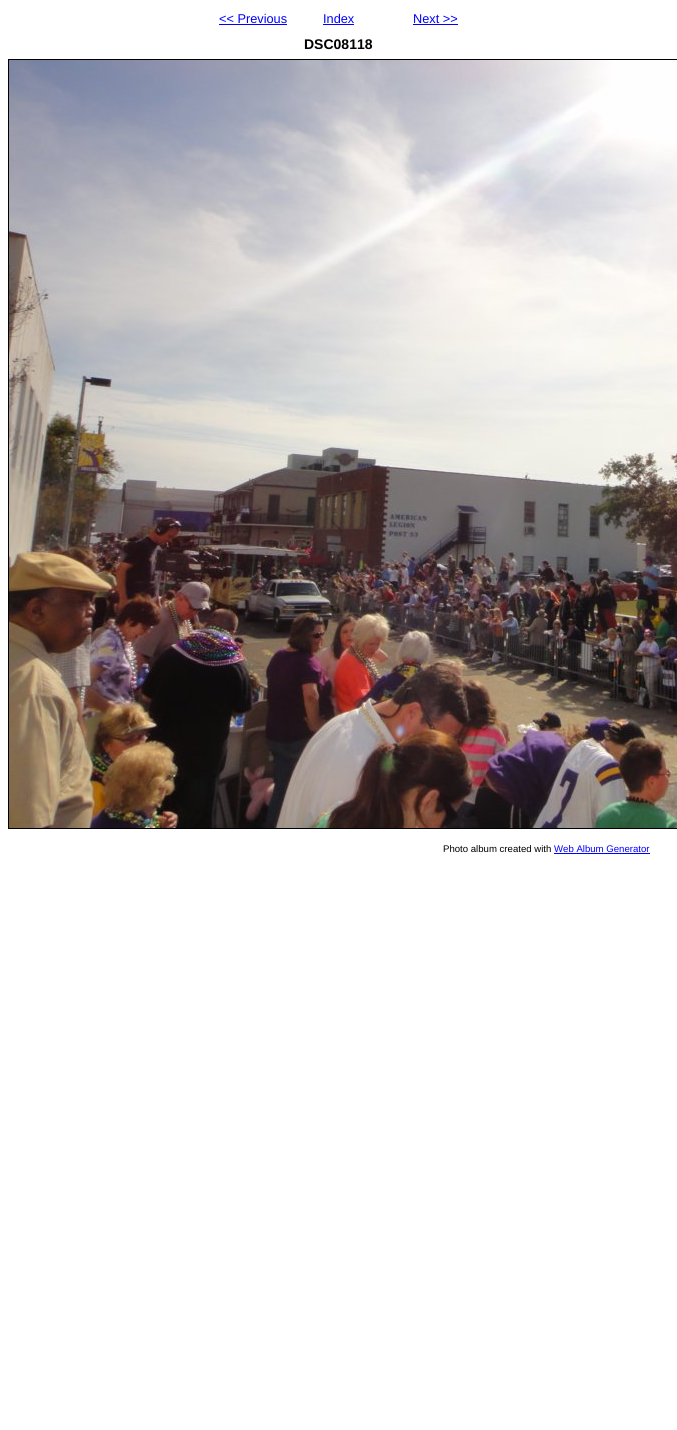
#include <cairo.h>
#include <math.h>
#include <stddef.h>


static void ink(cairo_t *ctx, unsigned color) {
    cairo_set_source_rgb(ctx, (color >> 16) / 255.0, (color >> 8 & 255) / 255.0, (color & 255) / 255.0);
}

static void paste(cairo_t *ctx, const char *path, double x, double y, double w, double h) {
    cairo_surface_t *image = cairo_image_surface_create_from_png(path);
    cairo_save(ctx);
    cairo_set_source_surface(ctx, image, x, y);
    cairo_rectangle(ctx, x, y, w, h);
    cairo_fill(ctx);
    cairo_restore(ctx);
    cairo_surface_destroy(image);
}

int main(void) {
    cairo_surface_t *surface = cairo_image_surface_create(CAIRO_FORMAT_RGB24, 677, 1430);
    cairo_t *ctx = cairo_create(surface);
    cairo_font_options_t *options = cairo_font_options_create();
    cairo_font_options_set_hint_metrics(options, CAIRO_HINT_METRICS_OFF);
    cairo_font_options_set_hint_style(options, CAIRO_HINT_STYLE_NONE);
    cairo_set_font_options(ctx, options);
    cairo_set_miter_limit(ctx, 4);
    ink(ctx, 0xFFFFFF);
    cairo_paint(ctx);
    cairo_select_font_face(ctx, "Liberation Sans", CAIRO_FONT_SLANT_NORMAL, CAIRO_FONT_WEIGHT_NORMAL);
    cairo_set_font_size(ctx, 12.75);
    ink(ctx, 0x0000FF);
    cairo_move_to(ctx, 219, 23);
    cairo_show_text(ctx, "<< Previous");
    cairo_rectangle(ctx, 219, 24, 68, 1);
    cairo_fill(ctx);
    cairo_move_to(ctx, 323, 23);
    cairo_show_text(ctx, "Index");
    cairo_rectangle(ctx, 323, 24, 31, 1);
    cairo_fill(ctx);
    cairo_move_to(ctx, 413, 23);
    cairo_show_text(ctx, "Next >>");
    cairo_rectangle(ctx, 413, 24, 45, 1);
    cairo_fill(ctx);
    cairo_select_font_face(ctx, "Liberation Sans", CAIRO_FONT_SLANT_NORMAL, CAIRO_FONT_WEIGHT_BOLD);
    cairo_set_font_size(ctx, 14);
    ink(ctx, 0x000000);
    cairo_move_to(ctx, 304, 49);
    cairo_show_text(ctx, "DSC08118");
    cairo_rectangle(ctx, 8.5, 59.5, 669, 769);
    cairo_set_line_width(ctx, 1);
    cairo_stroke(ctx);
    paste(ctx, "media/1.png", 9, 60, 668, 768);
    cairo_select_font_face(ctx, "Liberation Sans", CAIRO_FONT_SLANT_NORMAL, CAIRO_FONT_WEIGHT_NORMAL);
    cairo_set_font_size(ctx, 9.6);
    cairo_move_to(ctx, 443, 852);
    cairo_show_text(ctx, "Photo album created with");
    ink(ctx, 0x0000FF);
    cairo_move_to(ctx, 554, 852);
    cairo_show_text(ctx, "Web Album Generator");
    cairo_rectangle(ctx, 554, 853, 96, 1);
    cairo_fill(ctx);
    cairo_surface_write_to_png(surface, "image.png");
    cairo_font_options_destroy(options);
    cairo_destroy(ctx);
    cairo_surface_destroy(surface);
    return 0;
}
